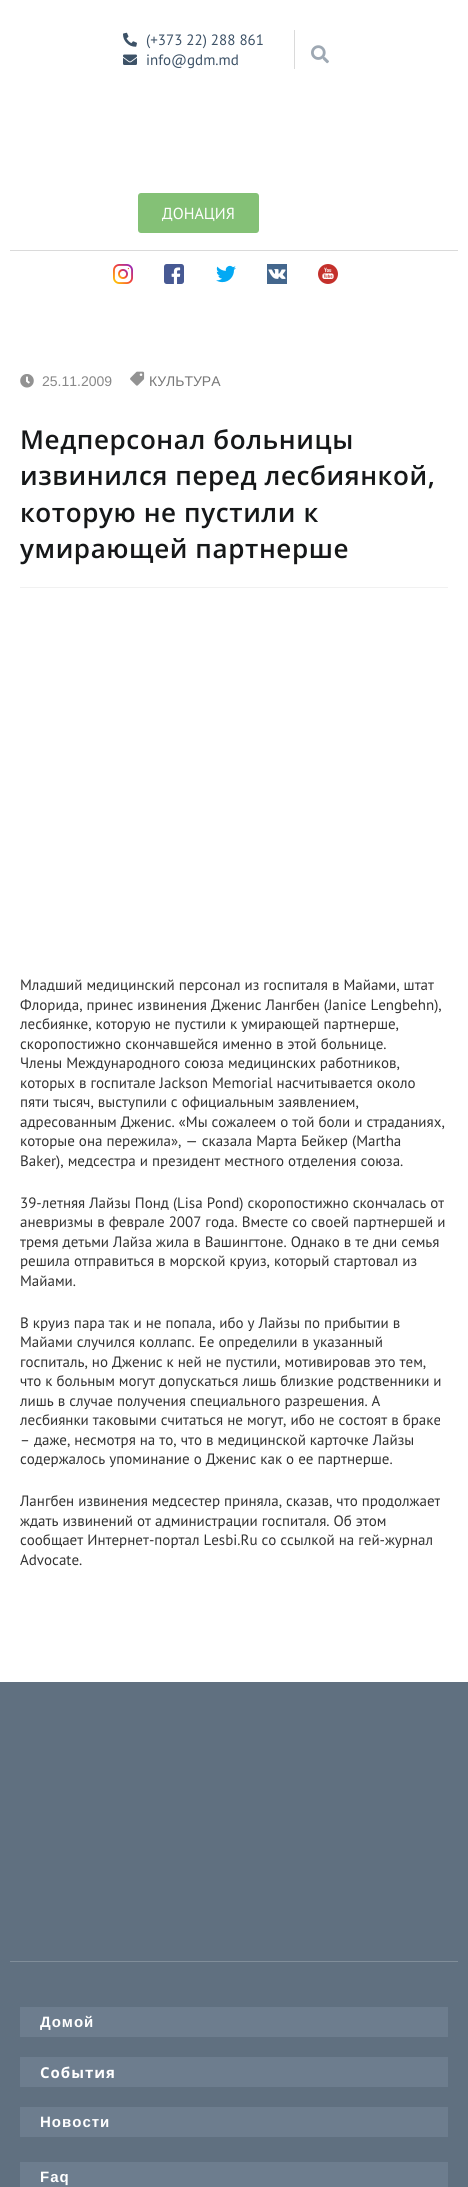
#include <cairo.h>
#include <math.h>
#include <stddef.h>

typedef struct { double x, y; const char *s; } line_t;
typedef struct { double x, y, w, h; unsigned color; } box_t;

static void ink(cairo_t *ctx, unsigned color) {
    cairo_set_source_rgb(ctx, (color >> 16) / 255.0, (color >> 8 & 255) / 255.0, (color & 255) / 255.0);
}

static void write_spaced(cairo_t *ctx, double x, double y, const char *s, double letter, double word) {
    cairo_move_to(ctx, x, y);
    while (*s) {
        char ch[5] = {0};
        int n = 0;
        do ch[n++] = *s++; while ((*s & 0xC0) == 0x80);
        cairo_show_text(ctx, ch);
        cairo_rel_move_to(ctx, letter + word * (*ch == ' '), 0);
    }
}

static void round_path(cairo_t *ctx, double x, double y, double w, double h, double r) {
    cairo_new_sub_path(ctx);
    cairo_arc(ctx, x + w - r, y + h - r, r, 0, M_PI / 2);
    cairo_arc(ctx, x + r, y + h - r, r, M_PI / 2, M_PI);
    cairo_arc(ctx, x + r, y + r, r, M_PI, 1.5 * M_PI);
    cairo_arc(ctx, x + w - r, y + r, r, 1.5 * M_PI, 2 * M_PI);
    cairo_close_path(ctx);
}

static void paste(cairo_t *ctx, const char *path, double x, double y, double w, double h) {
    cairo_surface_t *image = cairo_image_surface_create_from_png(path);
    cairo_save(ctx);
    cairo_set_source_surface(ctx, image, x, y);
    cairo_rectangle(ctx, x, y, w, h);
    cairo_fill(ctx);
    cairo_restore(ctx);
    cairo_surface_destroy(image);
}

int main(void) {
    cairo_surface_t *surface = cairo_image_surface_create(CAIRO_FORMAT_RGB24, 468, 2187);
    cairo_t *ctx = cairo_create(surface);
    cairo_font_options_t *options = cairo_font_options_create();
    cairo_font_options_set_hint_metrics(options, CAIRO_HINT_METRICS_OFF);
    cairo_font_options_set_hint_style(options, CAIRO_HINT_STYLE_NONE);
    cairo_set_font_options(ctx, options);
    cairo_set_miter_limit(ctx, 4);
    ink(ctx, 0xFFFFFF);
    cairo_paint(ctx);
    ink(ctx, 0xDADADA);
    cairo_rectangle(ctx, 294, 30, 1, 39);
    cairo_fill(ctx);
    paste(ctx, "media/1.png", 123, 32, 14, 15);
    cairo_select_font_face(ctx, "PT Sans", CAIRO_FONT_SLANT_NORMAL, CAIRO_FONT_WEIGHT_NORMAL);
    cairo_set_font_size(ctx, 15);
    ink(ctx, 0x3D5267);
    cairo_move_to(ctx, 146, 45);
    cairo_show_text(ctx, "(+373 22) 288 861");
    paste(ctx, "media/2.png", 123, 54, 14, 11);
    cairo_move_to(ctx, 146, 65);
    cairo_show_text(ctx, "info@gdm.md");
    paste(ctx, "media/3.png", 311, 45, 18, 19);
    ink(ctx, 0x84C176);
    round_path(ctx, 138, 193, 121, 40, 3);
    cairo_fill(ctx);
    cairo_set_font_size(ctx, 16);
    ink(ctx, 0xFFFFFF);
    cairo_move_to(ctx, 162, 219);
    cairo_show_text(ctx, "ДОНАЦИЯ");
    ink(ctx, 0xDADADA);
    cairo_rectangle(ctx, 10, 250, 448, 1);
    cairo_fill(ctx);
    paste(ctx, "media/4.png", 113, 264, 20, 20);
    paste(ctx, "media/5.png", 164, 264, 20, 20);
    paste(ctx, "media/6.png", 216, 265, 20, 18);
    paste(ctx, "media/7.png", 267, 264, 20, 20);
    paste(ctx, "media/8.png", 318, 264, 20, 20);
    paste(ctx, "media/9.png", 20, 374, 14, 14);
    cairo_select_font_face(ctx, "Liberation Sans", CAIRO_FONT_SLANT_NORMAL, CAIRO_FONT_WEIGHT_NORMAL);
    cairo_set_font_size(ctx, 14);
    ink(ctx, 0x888888);
    cairo_move_to(ctx, 42, 386);
    cairo_show_text(ctx, "25.11.2009");
    paste(ctx, "media/10.png", 130, 371, 15, 15);
    ink(ctx, 0x777777);
    cairo_move_to(ctx, 149, 386);
    cairo_show_text(ctx, "КУЛЬТУРА");
    ink(ctx, 0xF1F1F1);
    cairo_rectangle(ctx, 20, 587, 428, 1);
    cairo_fill(ctx);
    cairo_select_font_face(ctx, "Open Sans SemiBold", CAIRO_FONT_SLANT_NORMAL, CAIRO_FONT_WEIGHT_NORMAL);
    cairo_set_font_size(ctx, 26);
    ink(ctx, 0x161819);
    {
        static const line_t items[] = {
            {20, 449, "Медперсонал больницы"},
            {20, 485, "извинился перед лесбиянкой,"},
            {20, 522, "которую не пустили к"},
            {20, 558, "умирающей партнерше"},
        };
        for (size_t i = 0; i < sizeof items / sizeof *items; i++) {
            write_spaced(ctx, items[i].x, items[i].y, items[i].s, 0.6, 0);
        }
    }
    cairo_select_font_face(ctx, "PT Sans", CAIRO_FONT_SLANT_NORMAL, CAIRO_FONT_WEIGHT_NORMAL);
    cairo_set_font_size(ctx, 15);
    ink(ctx, 0x333333);
    {
        static const line_t items[] = {
            {20, 990, "Младший медицинский персонал из госпиталя в Майами, штат"},
            {20, 1010, "Флорида, принес извинения Дженис Лангбен (Janice Lengbehn),"},
            {20, 1029, "лесбиянке, которую не пустили к умирающей партнерше,"},
            {20, 1049, "скоропостижно скончавшейся именно в этой больнице."},
            {20, 1068, "Члены Международного союза медицинских работников,"},
            {20, 1088, "которых в госпитале Jackson Memorial насчитывается около"},
            {20, 1107, "пяти тысяч, выступили с официальным заявлением,"},
            {20, 1127, "адресованным Дженис. «Мы сожалеем о той боли и страданиях,"},
            {20, 1146, "которые она пережила», — сказала Марта Бейкер (Martha"},
            {20, 1166, "Baker), медсестра и президент местного отделения союза."},
            {20, 1208, "39-летняя Лайзы Понд (Lisa Pond) скоропостижно скончалась от"},
            {20, 1227, "аневризмы в феврале 2007 года. Вместе со своей партнершей и"},
            {20, 1247, "тремя детьми Лайза жила в Вашингтоне. Однако в те дни семья"},
            {20, 1266, "решила отправиться в морской круиз, который стартовал из"},
            {20, 1286, "Майами."},
            {20, 1328, "В круиз пара так и не попала, ибо у Лайзы по прибытии в"},
            {20, 1347, "Майами случился коллапс. Ее определили в указанный"},
            {20, 1367, "госпиталь, но Дженис к ней не пустили, мотивировав это тем,"},
            {20, 1386, "что к больным могут допускаться лишь близкие родственники и"},
            {20, 1406, "лишь в случае получения специального разрешения. А"},
            {20, 1425, "лесбиянки таковыми считаться не могут, ибо не состоят в браке"},
            {20, 1445, "– даже, несмотря на то, что в медицинской карточке Лайзы"},
            {20, 1464, "содержалось упоминание о Дженис как о ее партнерше."},
            {20, 1506, "Лангбен извинения медсестер приняла, сказав, что продолжает"},
            {20, 1526, "ждать извинений от администрации госпиталя. Об этом"},
            {20, 1545, "сообщает Интернет-портал Lesbi.Ru со ссылкой на гей-журнал"},
            {20, 1565, "Advocate."},
        };
        for (size_t i = 0; i < sizeof items / sizeof *items; i++) {
            cairo_move_to(ctx, items[i].x, items[i].y);
            cairo_show_text(ctx, items[i].s);
        }
    }
    {
        static const box_t items[] = {
            {0, 1682, 468, 505, 0x607080},
            {10, 1961, 448, 1, 0x808D99},
            {20, 2007, 428, 30, 0x6D7D8E},
        };
        for (size_t i = 0; i < sizeof items / sizeof *items; i++) {
            ink(ctx, items[i].color);
            cairo_rectangle(ctx, items[i].x, items[i].y, items[i].w, items[i].h);
            cairo_fill(ctx);
        }
    }
    cairo_select_font_face(ctx, "Liberation Sans", CAIRO_FONT_SLANT_NORMAL, CAIRO_FONT_WEIGHT_BOLD);
    ink(ctx, 0xFFFFFF);
    write_spaced(ctx, 40, 2027, "Домой", 1, 0);
    ink(ctx, 0x6D7D8E);
    cairo_rectangle(ctx, 20, 2057, 428, 30);
    cairo_fill(ctx);
    cairo_select_font_face(ctx, "Open Sans", CAIRO_FONT_SLANT_NORMAL, CAIRO_FONT_WEIGHT_BOLD);
    ink(ctx, 0xFFFFFF);
    write_spaced(ctx, 40, 2078, "События", 1, 0);
    ink(ctx, 0x6D7D8E);
    cairo_rectangle(ctx, 20, 2107, 428, 30);
    cairo_fill(ctx);
    cairo_select_font_face(ctx, "Liberation Sans", CAIRO_FONT_SLANT_NORMAL, CAIRO_FONT_WEIGHT_BOLD);
    ink(ctx, 0xFFFFFF);
    write_spaced(ctx, 40, 2127, "Новости", 1, 0);
    ink(ctx, 0x6D7D8E);
    cairo_rectangle(ctx, 20, 2162, 428, 25);
    cairo_fill(ctx);
    ink(ctx, 0xFFFFFF);
    write_spaced(ctx, 40, 2182, "Faq", 1, 0);
    cairo_surface_write_to_png(surface, "image.png");
    cairo_font_options_destroy(options);
    cairo_destroy(ctx);
    cairo_surface_destroy(surface);
    return 0;
}
